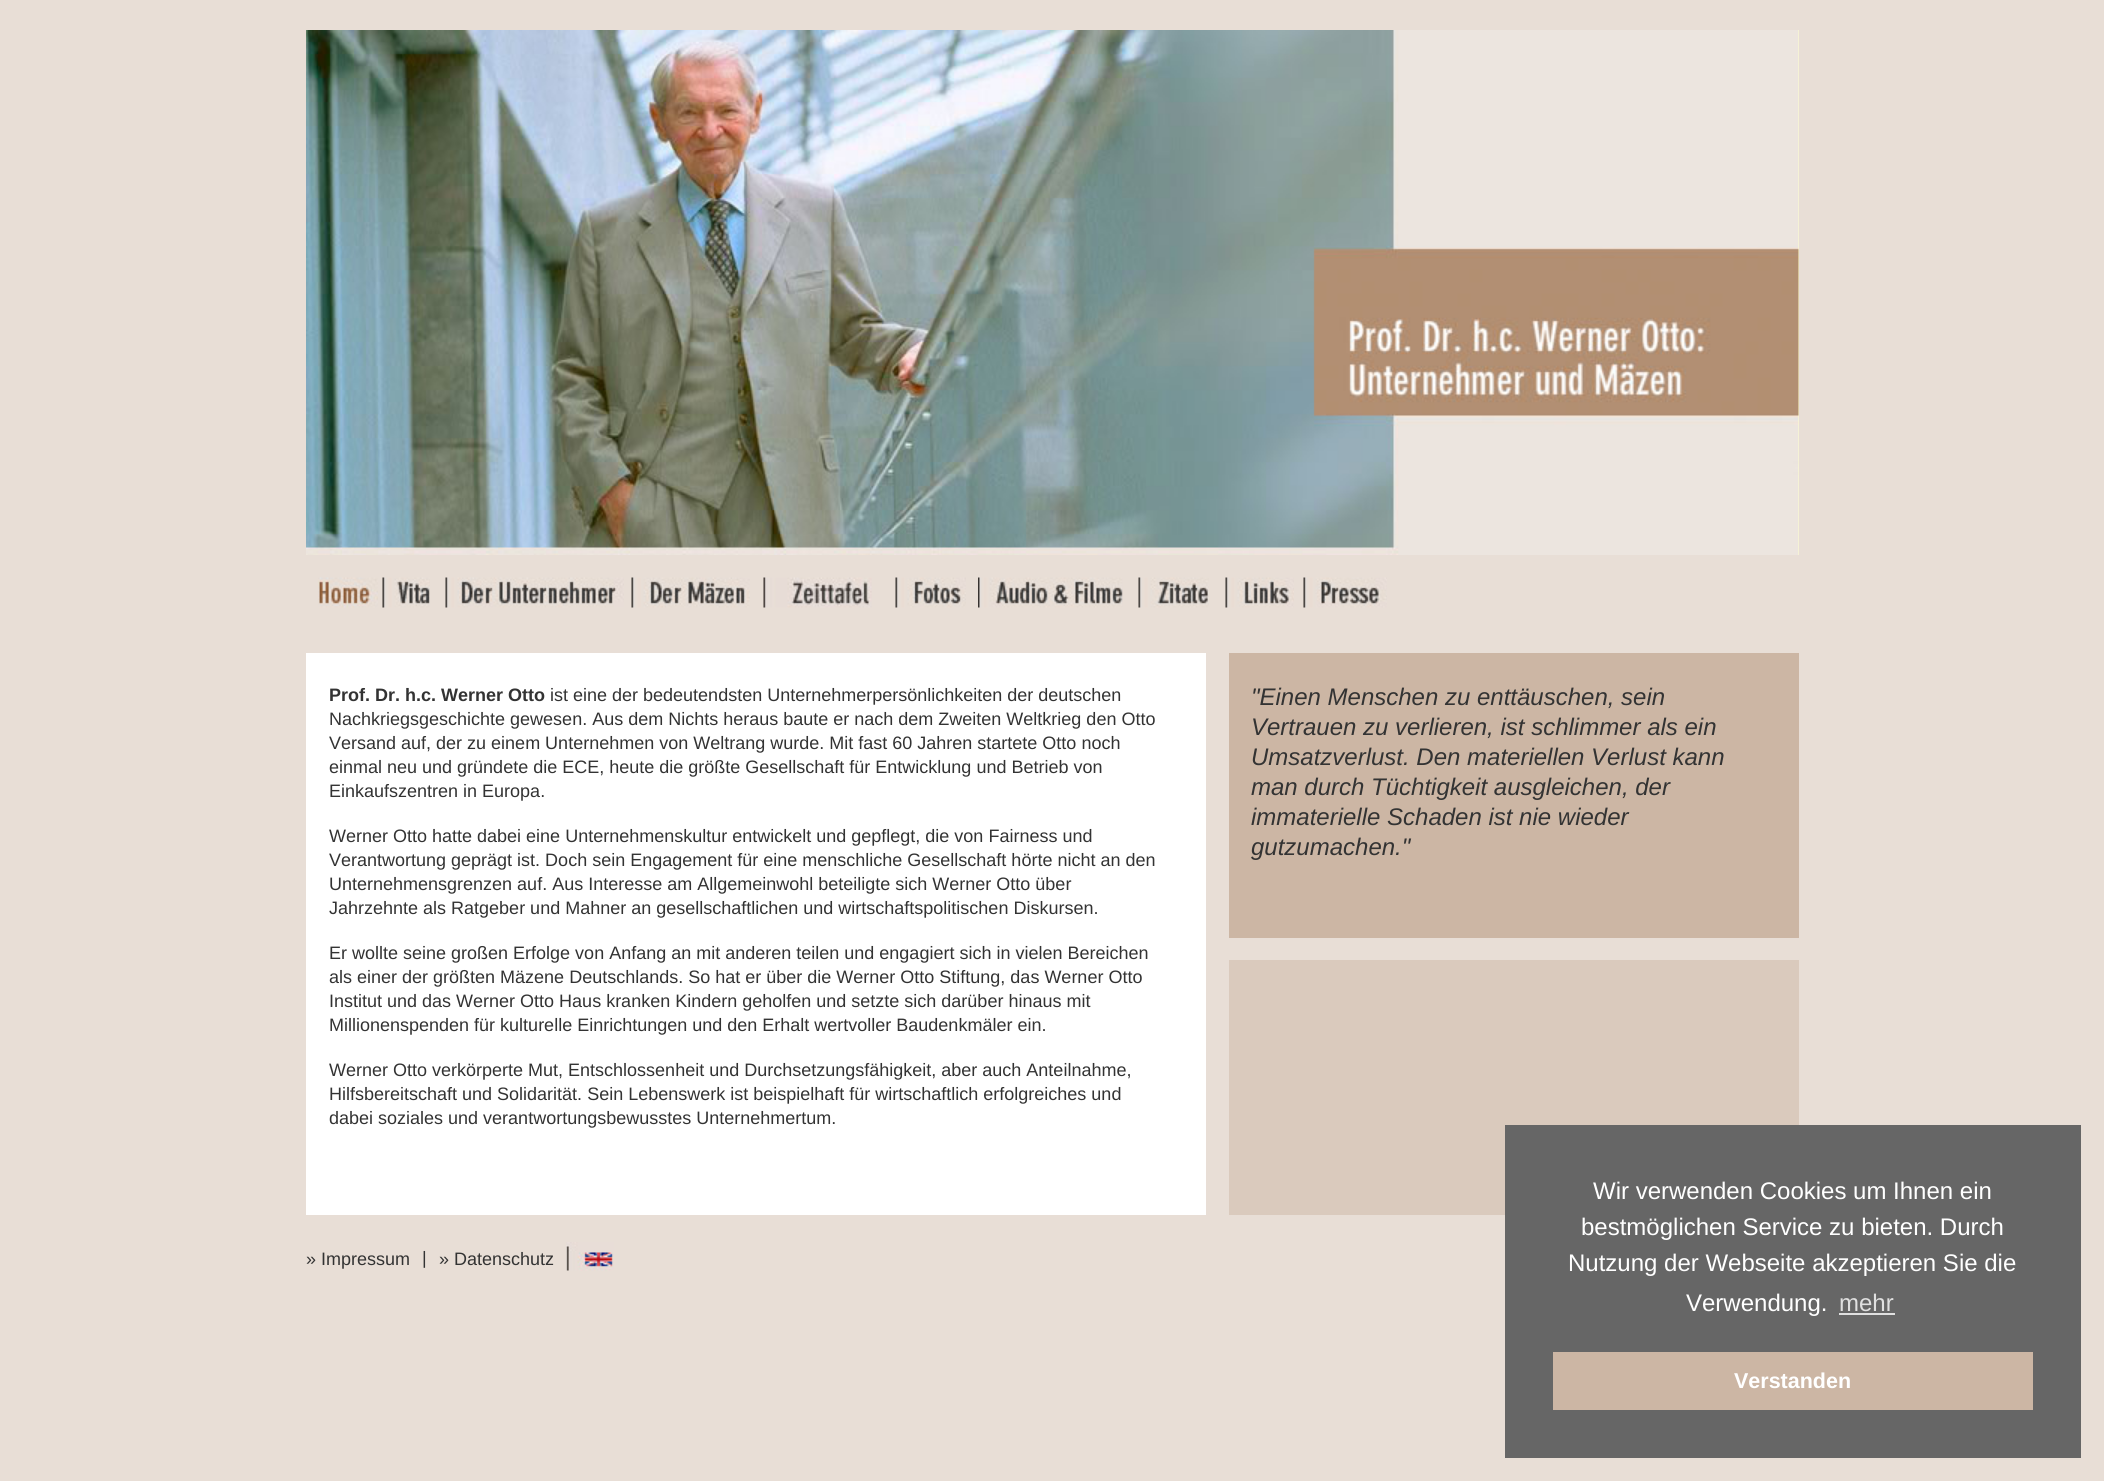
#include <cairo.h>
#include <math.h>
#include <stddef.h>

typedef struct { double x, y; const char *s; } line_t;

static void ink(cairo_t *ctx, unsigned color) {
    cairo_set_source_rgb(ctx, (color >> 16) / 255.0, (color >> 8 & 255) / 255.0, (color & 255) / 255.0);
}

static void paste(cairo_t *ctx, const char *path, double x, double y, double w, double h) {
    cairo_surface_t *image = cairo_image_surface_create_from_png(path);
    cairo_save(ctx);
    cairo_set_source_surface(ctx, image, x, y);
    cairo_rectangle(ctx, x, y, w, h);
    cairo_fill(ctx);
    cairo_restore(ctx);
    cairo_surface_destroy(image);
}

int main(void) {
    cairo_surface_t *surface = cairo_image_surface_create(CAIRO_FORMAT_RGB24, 2104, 1481);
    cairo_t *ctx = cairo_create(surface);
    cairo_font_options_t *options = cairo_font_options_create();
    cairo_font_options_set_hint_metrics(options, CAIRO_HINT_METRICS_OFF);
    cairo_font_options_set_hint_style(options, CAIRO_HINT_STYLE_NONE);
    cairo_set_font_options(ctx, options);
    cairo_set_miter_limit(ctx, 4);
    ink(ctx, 0xE8DED6);
    cairo_paint(ctx);
    ink(ctx, 0xFFFFCC);
    cairo_rectangle(ctx, 1798, 30, 1, 525);
    cairo_fill(ctx);
    paste(ctx, "media/1.png", 306, 30, 1493, 525);
    paste(ctx, "media/2.png", 318, 577, 60, 31);
    paste(ctx, "media/3.png", 382, 577, 48, 31);
    paste(ctx, "media/4.png", 445, 577, 179, 31);
    paste(ctx, "media/5.png", 631, 577, 119, 31);
    paste(ctx, "media/6.png", 763, 577, 109, 31);
    paste(ctx, "media/7.png", 895, 577, 71, 31);
    paste(ctx, "media/8.png", 978, 577, 145, 31);
    paste(ctx, "media/9.png", 1138, 577, 71, 31);
    paste(ctx, "media/10.png", 1225, 577, 69, 31);
    paste(ctx, "media/11.png", 1303, 577, 84, 31);
    ink(ctx, 0xFFFFFF);
    cairo_rectangle(ctx, 306, 653, 900, 562);
    cairo_fill(ctx);
    cairo_select_font_face(ctx, "Liberation Sans", CAIRO_FONT_SLANT_NORMAL, CAIRO_FONT_WEIGHT_BOLD);
    cairo_set_font_size(ctx, 18);
    ink(ctx, 0x333333);
    cairo_move_to(ctx, 329, 701);
    cairo_show_text(ctx, "Prof. Dr. h.c. Werner Otto");
    cairo_select_font_face(ctx, "Liberation Sans", CAIRO_FONT_SLANT_NORMAL, CAIRO_FONT_WEIGHT_NORMAL);
    {
        static const line_t items[] = {
            {550, 701, "ist eine der bedeutendsten Unternehmerpersönlichkeiten der deutschen"},
            {329, 725, "Nachkriegsgeschichte gewesen. Aus dem Nichts heraus baute er nach dem Zweiten Weltkrieg den Otto"},
            {329, 749, "Versand auf, der zu einem Unternehmen von Weltrang wurde. Mit fast 60 Jahren startete Otto noch"},
            {329, 773, "einmal neu und gründete die ECE, heute die größte Gesellschaft für Entwicklung und Betrieb von"},
            {329, 797, "Einkaufszentren in Europa."},
            {329, 842, "Werner Otto hatte dabei eine Unternehmenskultur entwickelt und gepflegt, die von Fairness und"},
            {329, 866, "Verantwortung geprägt ist. Doch sein Engagement für eine menschliche Gesellschaft hörte nicht an den"},
            {329, 890, "Unternehmensgrenzen auf. Aus Interesse am Allgemeinwohl beteiligte sich Werner Otto über"},
            {329, 914, "Jahrzehnte als Ratgeber und Mahner an gesellschaftlichen und wirtschaftspolitischen Diskursen."},
            {329, 959, "Er wollte seine großen Erfolge von Anfang an mit anderen teilen und engagiert sich in vielen Bereichen"},
            {329, 983, "als einer der größten Mäzene Deutschlands. So hat er über die Werner Otto Stiftung, das Werner Otto"},
            {329, 1007, "Institut und das Werner Otto Haus kranken Kindern geholfen und setzte sich darüber hinaus mit"},
            {329, 1031, "Millionenspenden für kulturelle Einrichtungen und den Erhalt wertvoller Baudenkmäler ein."},
            {329, 1076, "Werner Otto verkörperte Mut, Entschlossenheit und Durchsetzungsfähigkeit, aber auch Anteilnahme,"},
            {329, 1100, "Hilfsbereitschaft und Solidarität. Sein Lebenswerk ist beispielhaft für wirtschaftlich erfolgreiches und"},
            {329, 1124, "dabei soziales und verantwortungsbewusstes Unternehmertum."},
        };
        for (size_t i = 0; i < sizeof items / sizeof *items; i++) {
            cairo_move_to(ctx, items[i].x, items[i].y);
            cairo_show_text(ctx, items[i].s);
        }
    }
    ink(ctx, 0xDACABD);
    cairo_rectangle(ctx, 1229, 960, 570, 255);
    cairo_fill(ctx);
    ink(ctx, 0xCCB6A4);
    cairo_rectangle(ctx, 1229, 653, 570, 285);
    cairo_fill(ctx);
    cairo_select_font_face(ctx, "Liberation Sans", CAIRO_FONT_SLANT_ITALIC, CAIRO_FONT_WEIGHT_NORMAL);
    cairo_set_font_size(ctx, 24);
    ink(ctx, 0x333333);
    {
        static const line_t items[] = {
            {1251, 705, "\"Einen Menschen zu enttäuschen, sein"},
            {1251, 735, "Vertrauen zu verlieren, ist schlimmer als ein"},
            {1251, 765, "Umsatzverlust. Den materiellen Verlust kann"},
            {1251, 795, "man durch Tüchtigkeit ausgleichen, der"},
            {1251, 825, "immaterielle Schaden ist nie wieder"},
            {1251, 855, "gutzumachen.\""},
        };
        for (size_t i = 0; i < sizeof items / sizeof *items; i++) {
            cairo_move_to(ctx, items[i].x, items[i].y);
            cairo_show_text(ctx, items[i].s);
        }
    }
    cairo_select_font_face(ctx, "Liberation Sans", CAIRO_FONT_SLANT_NORMAL, CAIRO_FONT_WEIGHT_NORMAL);
    cairo_set_font_size(ctx, 18);
    {
        static const line_t items[] = {
            {306, 1265, "» Impressum"},
            {422, 1264, "|"},
            {439, 1265, "» Datenschutz"},
        };
        for (size_t i = 0; i < sizeof items / sizeof *items; i++) {
            cairo_move_to(ctx, items[i].x, items[i].y);
            cairo_show_text(ctx, items[i].s);
        }
    }
    paste(ctx, "media/12.png", 566, 1242, 48, 29);
    ink(ctx, 0x666666);
    cairo_rectangle(ctx, 1505, 1125, 576, 333);
    cairo_fill(ctx);
    cairo_set_font_size(ctx, 24);
    ink(ctx, 0xFFFFFF);
    {
        static const line_t items[] = {
            {1593, 1199, "Wir verwenden Cookies um Ihnen ein"},
            {1581, 1235, "bestmöglichen Service zu bieten. Durch"},
            {1568, 1271, "Nutzung der Webseite akzeptieren Sie die"},
            {1686, 1311, "Verwendung."},
        };
        for (size_t i = 0; i < sizeof items / sizeof *items; i++) {
            cairo_move_to(ctx, items[i].x, items[i].y);
            cairo_show_text(ctx, items[i].s);
        }
    }
    ink(ctx, 0xE0E0E0);
    cairo_move_to(ctx, 1839, 1311);
    cairo_show_text(ctx, "mehr");
    cairo_rectangle(ctx, 1839, 1313, 56, 2);
    cairo_fill(ctx);
    ink(ctx, 0xCCB6A4);
    cairo_rectangle(ctx, 1553, 1352, 480, 58);
    cairo_fill(ctx);
    cairo_select_font_face(ctx, "Liberation Sans", CAIRO_FONT_SLANT_NORMAL, CAIRO_FONT_WEIGHT_BOLD);
    cairo_set_font_size(ctx, 21.5);
    ink(ctx, 0xFFFFFF);
    cairo_move_to(ctx, 1734, 1388);
    cairo_show_text(ctx, "Verstanden");
    cairo_surface_write_to_png(surface, "image.png");
    cairo_font_options_destroy(options);
    cairo_destroy(ctx);
    cairo_surface_destroy(surface);
    return 0;
}
